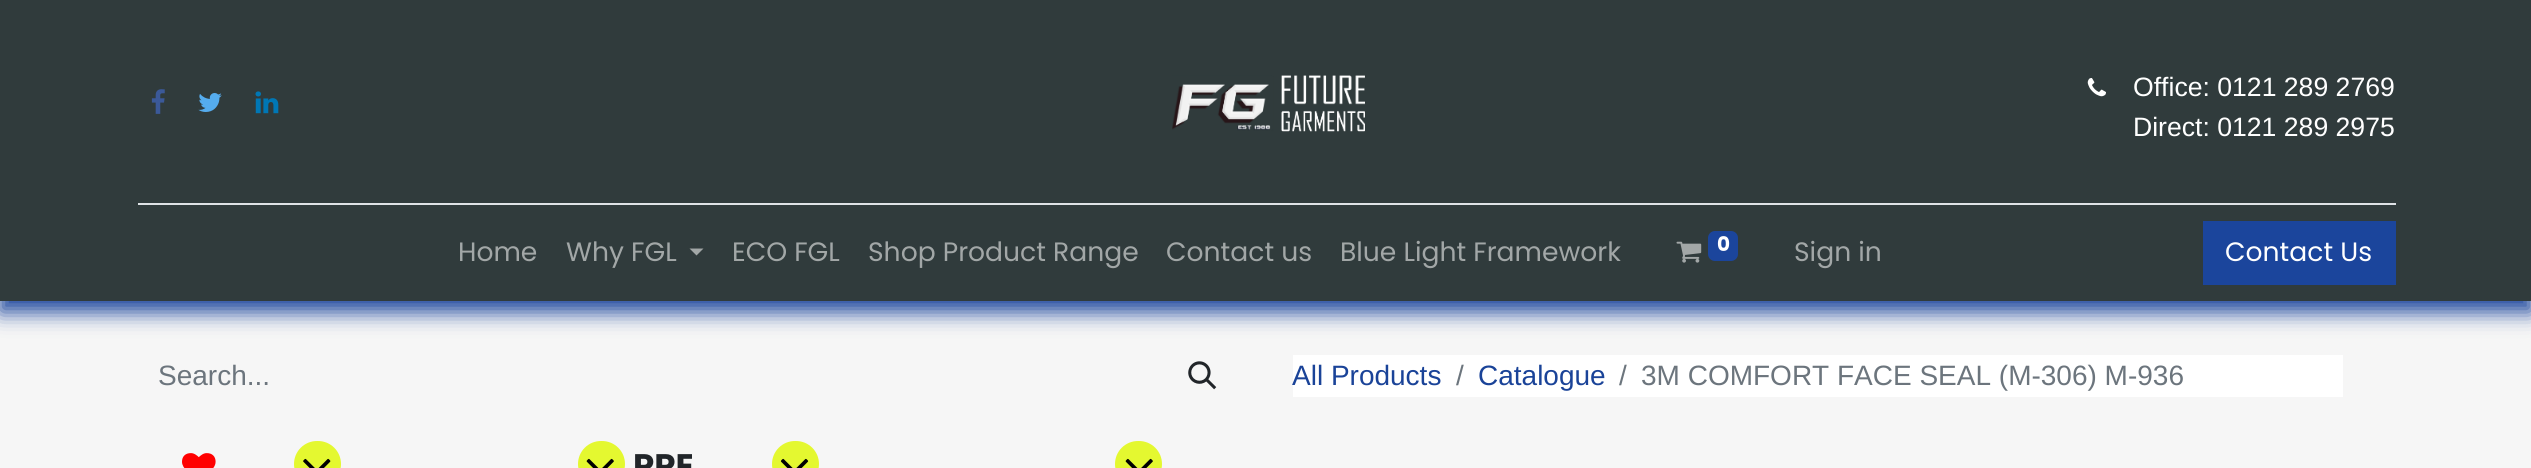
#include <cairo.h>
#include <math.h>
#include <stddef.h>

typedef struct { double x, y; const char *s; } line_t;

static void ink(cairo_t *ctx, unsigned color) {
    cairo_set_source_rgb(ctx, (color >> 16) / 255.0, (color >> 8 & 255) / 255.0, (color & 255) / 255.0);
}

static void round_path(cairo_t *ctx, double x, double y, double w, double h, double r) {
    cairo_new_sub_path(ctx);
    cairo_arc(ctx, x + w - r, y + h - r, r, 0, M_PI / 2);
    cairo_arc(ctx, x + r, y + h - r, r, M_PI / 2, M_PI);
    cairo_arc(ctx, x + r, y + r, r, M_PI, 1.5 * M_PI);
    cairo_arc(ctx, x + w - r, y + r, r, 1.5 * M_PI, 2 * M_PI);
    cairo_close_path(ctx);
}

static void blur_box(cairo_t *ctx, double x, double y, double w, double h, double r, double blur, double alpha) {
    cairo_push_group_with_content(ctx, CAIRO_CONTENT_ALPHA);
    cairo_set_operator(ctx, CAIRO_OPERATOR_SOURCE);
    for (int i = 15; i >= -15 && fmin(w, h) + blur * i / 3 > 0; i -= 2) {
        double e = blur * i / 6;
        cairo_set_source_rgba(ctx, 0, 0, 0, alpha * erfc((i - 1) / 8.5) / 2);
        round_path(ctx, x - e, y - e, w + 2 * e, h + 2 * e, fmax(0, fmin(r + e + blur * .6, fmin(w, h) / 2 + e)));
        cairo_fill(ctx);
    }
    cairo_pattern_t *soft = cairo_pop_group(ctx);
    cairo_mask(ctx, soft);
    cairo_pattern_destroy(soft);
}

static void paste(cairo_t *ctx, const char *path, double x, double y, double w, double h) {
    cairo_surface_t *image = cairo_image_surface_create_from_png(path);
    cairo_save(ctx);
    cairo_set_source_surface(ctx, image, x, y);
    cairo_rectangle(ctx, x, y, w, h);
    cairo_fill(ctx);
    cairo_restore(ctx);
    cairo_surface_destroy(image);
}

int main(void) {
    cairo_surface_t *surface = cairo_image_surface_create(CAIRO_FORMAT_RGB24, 2531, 468);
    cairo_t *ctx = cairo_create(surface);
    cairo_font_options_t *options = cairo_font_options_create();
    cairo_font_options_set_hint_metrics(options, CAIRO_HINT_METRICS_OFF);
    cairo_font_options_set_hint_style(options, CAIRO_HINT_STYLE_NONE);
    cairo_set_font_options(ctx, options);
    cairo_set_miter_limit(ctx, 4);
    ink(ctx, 0xF6F6F6);
    cairo_paint(ctx);
    ink(ctx, 0x1B459C);
    blur_box(ctx, 0, 11, 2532, 301, 0, 10.5, 1);
    ink(ctx, 0x303B3C);
    cairo_rectangle(ctx, 0, 0, 2531, 301);
    cairo_fill(ctx);
    paste(ctx, "media/1.png", 151, 89, 14, 25);
    paste(ctx, "media/2.png", 198, 93, 24, 19);
    paste(ctx, "media/3.png", 255, 91, 24, 23);
    paste(ctx, "media/4.png", 1172, 75, 193, 57);
    paste(ctx, "media/5.png", 2087, 78, 19, 19);
    cairo_select_font_face(ctx, "Liberation Sans", CAIRO_FONT_SLANT_NORMAL, CAIRO_FONT_WEIGHT_NORMAL);
    cairo_set_font_size(ctx, 26.6);
    ink(ctx, 0xFFFFFF);
    cairo_move_to(ctx, 2133, 96);
    cairo_show_text(ctx, "Office: 0121 289 2769");
    cairo_move_to(ctx, 2133, 136);
    cairo_show_text(ctx, "Direct: 0121 289 2975");
    ink(ctx, 0xDEE2E6);
    cairo_rectangle(ctx, 138, 203, 2258, 2);
    cairo_fill(ctx);
    cairo_select_font_face(ctx, "Poppins", CAIRO_FONT_SLANT_NORMAL, CAIRO_FONT_WEIGHT_NORMAL);
    ink(ctx, 0xA2A7A7);
    cairo_move_to(ctx, 458, 261);
    cairo_show_text(ctx, "Home");
    cairo_move_to(ctx, 566, 261);
    cairo_show_text(ctx, "Why FGL");
    cairo_new_path(ctx);
    cairo_move_to(ctx, 689.5, 248.5);
    cairo_line_to(ctx, 703.5, 248.5);
    cairo_line_to(ctx, 696.5, 255.5);
    cairo_close_path(ctx);
    cairo_fill(ctx);
    {
        static const line_t items[] = {
            {732, 261, "ECO FGL"},
            {868, 261, "Shop Product Range"},
            {1166, 261, "Contact us"},
            {1340, 261, "Blue Light Framework"},
        };
        for (size_t i = 0; i < sizeof items / sizeof *items; i++) {
            cairo_move_to(ctx, items[i].x, items[i].y);
            cairo_show_text(ctx, items[i].s);
        }
    }
    paste(ctx, "media/6.png", 1676, 241, 26, 22);
    ink(ctx, 0x1B459C);
    round_path(ctx, 1708, 231, 30, 30, 7);
    cairo_fill(ctx);
    cairo_select_font_face(ctx, "Poppins", CAIRO_FONT_SLANT_NORMAL, CAIRO_FONT_WEIGHT_BOLD);
    cairo_set_font_size(ctx, 20);
    ink(ctx, 0xFFFFFF);
    cairo_move_to(ctx, 1717, 251);
    cairo_show_text(ctx, "0");
    cairo_select_font_face(ctx, "Poppins", CAIRO_FONT_SLANT_NORMAL, CAIRO_FONT_WEIGHT_NORMAL);
    cairo_set_font_size(ctx, 26.6);
    ink(ctx, 0xA2A7A7);
    cairo_move_to(ctx, 1794, 261);
    cairo_show_text(ctx, "Sign in");
    ink(ctx, 0x1B459C);
    cairo_rectangle(ctx, 2203, 221, 193, 64);
    cairo_fill(ctx);
    ink(ctx, 0xFFFFFF);
    cairo_move_to(ctx, 2225, 261);
    cairo_show_text(ctx, "Contact Us");
    cairo_select_font_face(ctx, "Liberation Sans", CAIRO_FONT_SLANT_NORMAL, CAIRO_FONT_WEIGHT_NORMAL);
    cairo_set_font_size(ctx, 28);
    ink(ctx, 0x6C757D);
    cairo_move_to(ctx, 158, 385);
    cairo_show_text(ctx, "Search...");
    paste(ctx, "media/7.png", 1188, 361, 29, 29);
    ink(ctx, 0xFFFFFF);
    cairo_rectangle(ctx, 1293, 355, 1050, 42);
    cairo_fill(ctx);
    ink(ctx, 0x1A4398);
    cairo_move_to(ctx, 1292, 385);
    cairo_show_text(ctx, "All Products");
    ink(ctx, 0x6C757D);
    cairo_move_to(ctx, 1456, 385);
    cairo_show_text(ctx, "/");
    ink(ctx, 0x1A4398);
    cairo_move_to(ctx, 1478, 385);
    cairo_show_text(ctx, "Catalogue");
    ink(ctx, 0x6C757D);
    cairo_move_to(ctx, 1619, 385);
    cairo_show_text(ctx, "/");
    cairo_move_to(ctx, 1641, 385);
    cairo_show_text(ctx, "3M COMFORT FACE SEAL (M-306) M-936");
    paste(ctx, "media/8.png", 182, 453, 34, 15);
    ink(ctx, 0xE4F830);
    round_path(ctx, 294, 441, 47, 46, 23);
    cairo_fill(ctx);
    paste(ctx, "media/9.png", 303, 458, 28, 10);
    round_path(ctx, 578, 441, 47, 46, 23);
    cairo_fill(ctx);
    paste(ctx, "media/10.png", 586, 458, 28, 10);
    cairo_select_font_face(ctx, "Poppins", CAIRO_FONT_SLANT_NORMAL, CAIRO_FONT_WEIGHT_BOLD);
    cairo_set_font_size(ctx, 34);
    ink(ctx, 0x212529);
    cairo_move_to(ctx, 633, 478);
    cairo_show_text(ctx, "PPE");
    ink(ctx, 0xE4F830);
    round_path(ctx, 772, 441, 47, 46, 23);
    cairo_fill(ctx);
    paste(ctx, "media/11.png", 780, 458, 29, 10);
    round_path(ctx, 1115, 441, 47, 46, 23);
    cairo_fill(ctx);
    paste(ctx, "media/10.png", 1125, 458, 28, 10);
    cairo_surface_write_to_png(surface, "image.png");
    cairo_font_options_destroy(options);
    cairo_destroy(ctx);
    cairo_surface_destroy(surface);
    return 0;
}
